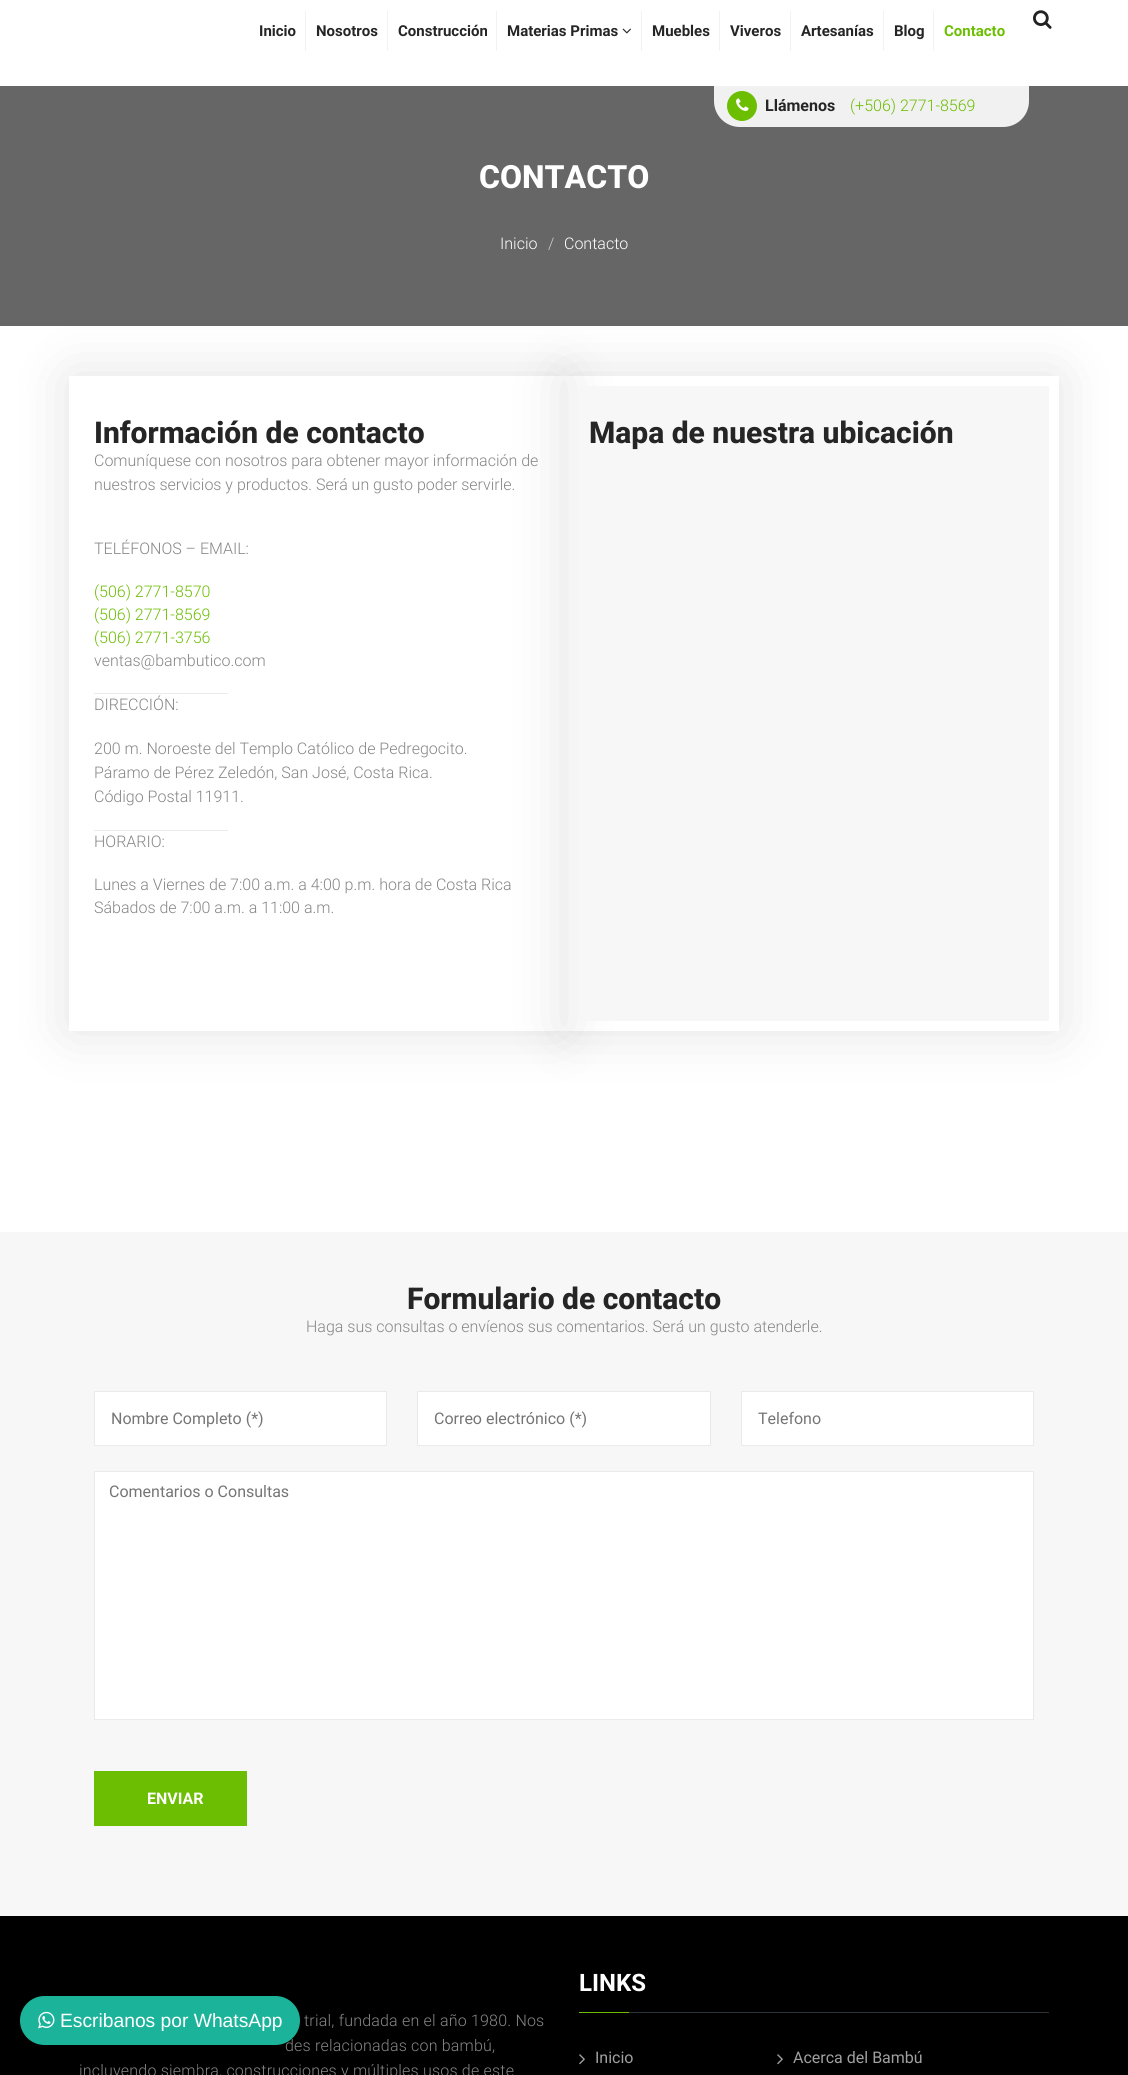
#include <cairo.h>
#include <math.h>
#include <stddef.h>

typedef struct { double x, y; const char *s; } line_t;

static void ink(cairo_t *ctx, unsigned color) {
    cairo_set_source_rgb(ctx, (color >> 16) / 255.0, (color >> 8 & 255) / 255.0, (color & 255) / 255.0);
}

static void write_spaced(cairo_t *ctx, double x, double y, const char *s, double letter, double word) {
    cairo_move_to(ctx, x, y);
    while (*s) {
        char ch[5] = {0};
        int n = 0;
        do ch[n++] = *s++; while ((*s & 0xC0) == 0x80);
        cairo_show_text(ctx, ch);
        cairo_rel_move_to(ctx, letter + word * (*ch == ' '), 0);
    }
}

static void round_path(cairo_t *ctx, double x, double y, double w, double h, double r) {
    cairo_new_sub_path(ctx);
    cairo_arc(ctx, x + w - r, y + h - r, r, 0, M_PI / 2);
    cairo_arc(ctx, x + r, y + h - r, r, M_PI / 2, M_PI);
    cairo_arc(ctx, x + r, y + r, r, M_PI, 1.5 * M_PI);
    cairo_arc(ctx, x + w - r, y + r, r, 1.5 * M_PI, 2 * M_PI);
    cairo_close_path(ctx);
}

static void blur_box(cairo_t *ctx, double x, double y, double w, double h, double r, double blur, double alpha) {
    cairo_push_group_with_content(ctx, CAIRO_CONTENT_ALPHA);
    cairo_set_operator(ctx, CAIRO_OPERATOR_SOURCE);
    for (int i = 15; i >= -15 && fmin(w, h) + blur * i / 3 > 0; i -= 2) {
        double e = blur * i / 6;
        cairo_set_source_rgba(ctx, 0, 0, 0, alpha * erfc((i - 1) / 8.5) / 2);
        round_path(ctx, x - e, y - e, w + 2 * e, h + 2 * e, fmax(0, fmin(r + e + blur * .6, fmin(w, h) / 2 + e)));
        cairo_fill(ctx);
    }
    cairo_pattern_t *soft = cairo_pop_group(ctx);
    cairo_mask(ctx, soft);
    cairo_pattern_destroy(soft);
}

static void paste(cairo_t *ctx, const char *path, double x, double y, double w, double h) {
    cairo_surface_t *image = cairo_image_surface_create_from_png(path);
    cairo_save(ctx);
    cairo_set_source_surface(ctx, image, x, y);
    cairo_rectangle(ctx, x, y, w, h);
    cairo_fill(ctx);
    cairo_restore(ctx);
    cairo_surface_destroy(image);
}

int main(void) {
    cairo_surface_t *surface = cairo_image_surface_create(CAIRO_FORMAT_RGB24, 1128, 2075);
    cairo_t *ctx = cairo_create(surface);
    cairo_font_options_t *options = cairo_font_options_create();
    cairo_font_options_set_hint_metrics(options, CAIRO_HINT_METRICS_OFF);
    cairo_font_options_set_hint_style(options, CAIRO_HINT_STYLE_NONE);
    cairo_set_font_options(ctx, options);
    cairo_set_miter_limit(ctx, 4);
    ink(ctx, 0xFFFFFF);
    cairo_paint(ctx);
    paste(ctx, "media/1.png", 1033, 10, 19, 19);
    cairo_select_font_face(ctx, "Roboto", CAIRO_FONT_SLANT_NORMAL, CAIRO_FONT_WEIGHT_BOLD);
    cairo_set_font_size(ctx, 15);
    ink(ctx, 0x252525);
    cairo_move_to(ctx, 259, 36);
    cairo_show_text(ctx, "Inicio");
    ink(ctx, 0xF2F2F2);
    cairo_rectangle(ctx, 305, 11, 1, 40);
    cairo_fill(ctx);
    ink(ctx, 0x252525);
    cairo_move_to(ctx, 316, 36);
    cairo_show_text(ctx, "Nosotros");
    ink(ctx, 0xF2F2F2);
    cairo_rectangle(ctx, 387, 11, 1, 40);
    cairo_fill(ctx);
    ink(ctx, 0x252525);
    cairo_move_to(ctx, 398, 36);
    cairo_show_text(ctx, "Construcción");
    ink(ctx, 0xF2F2F2);
    cairo_rectangle(ctx, 496, 11, 1, 40);
    cairo_fill(ctx);
    ink(ctx, 0x252525);
    cairo_move_to(ctx, 507, 36);
    cairo_show_text(ctx, "Materias Primas");
    paste(ctx, "media/2.png", 622, 28, 9, 6);
    ink(ctx, 0xF2F2F2);
    cairo_rectangle(ctx, 641, 11, 1, 40);
    cairo_fill(ctx);
    ink(ctx, 0x252525);
    cairo_move_to(ctx, 652, 36);
    cairo_show_text(ctx, "Muebles");
    ink(ctx, 0xF2F2F2);
    cairo_rectangle(ctx, 719, 11, 1, 40);
    cairo_fill(ctx);
    ink(ctx, 0x252525);
    cairo_move_to(ctx, 730, 36);
    cairo_show_text(ctx, "Viveros");
    ink(ctx, 0xF2F2F2);
    cairo_rectangle(ctx, 790, 11, 1, 40);
    cairo_fill(ctx);
    ink(ctx, 0x252525);
    cairo_move_to(ctx, 801, 36);
    cairo_show_text(ctx, "Artesanías");
    ink(ctx, 0xF2F2F2);
    cairo_rectangle(ctx, 883, 11, 1, 40);
    cairo_fill(ctx);
    ink(ctx, 0x252525);
    cairo_move_to(ctx, 894, 36);
    cairo_show_text(ctx, "Blog");
    ink(ctx, 0xF2F2F2);
    cairo_rectangle(ctx, 933, 11, 1, 40);
    cairo_fill(ctx);
    ink(ctx, 0x6CBE03);
    cairo_move_to(ctx, 944, 36);
    cairo_show_text(ctx, "Contacto");
    ink(ctx, 0x666666);
    cairo_rectangle(ctx, 0, 86, 1128, 240);
    cairo_fill(ctx);
    ink(ctx, 0xF1F1F1);
    cairo_new_path(ctx);
    cairo_move_to(ctx, 714, 86);
    cairo_line_to(ctx, 1029, 86);
    cairo_line_to(ctx, 1029, 101);
    cairo_curve_to(ctx, 1029, 115.5, 1017.5, 127, 1003, 127);
    cairo_line_to(ctx, 740, 127);
    cairo_curve_to(ctx, 725.5, 127, 714, 115.5, 714, 101);
    cairo_close_path(ctx);
    cairo_fill(ctx);
    ink(ctx, 0x6CBE03);
    cairo_arc(ctx, 742, 106, 15, 0, 2 * M_PI);
    cairo_fill(ctx);
    paste(ctx, "media/3.png", 736, 98, 13, 13);
    cairo_set_font_size(ctx, 16);
    ink(ctx, 0x252525);
    cairo_move_to(ctx, 765, 111);
    cairo_show_text(ctx, "Llámenos");
    cairo_select_font_face(ctx, "Roboto Light", CAIRO_FONT_SLANT_NORMAL, CAIRO_FONT_WEIGHT_NORMAL);
    ink(ctx, 0x6CBE03);
    cairo_move_to(ctx, 850, 111);
    cairo_show_text(ctx, "(+506) 2771-8569");
    cairo_select_font_face(ctx, "Roboto ExtraBold", CAIRO_FONT_SLANT_NORMAL, CAIRO_FONT_WEIGHT_NORMAL);
    cairo_set_font_size(ctx, 32);
    ink(ctx, 0xFFFFFF);
    cairo_move_to(ctx, 479, 188);
    cairo_show_text(ctx, "CONTACTO");
    cairo_select_font_face(ctx, "Roboto Light", CAIRO_FONT_SLANT_NORMAL, CAIRO_FONT_WEIGHT_NORMAL);
    cairo_set_font_size(ctx, 16);
    cairo_move_to(ctx, 500, 249);
    cairo_show_text(ctx, "Inicio");
    ink(ctx, 0xCCCCCC);
    cairo_move_to(ctx, 548, 249);
    cairo_show_text(ctx, "/");
    ink(ctx, 0xFFFFFF);
    cairo_move_to(ctx, 564, 249);
    cairo_show_text(ctx, "Contacto");
    cairo_save(ctx);
    cairo_set_fill_rule(ctx, CAIRO_FILL_RULE_EVEN_ODD);
    cairo_new_path(ctx);
    cairo_move_to(ctx, 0, 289);
    cairo_line_to(ctx, 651, 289);
    cairo_line_to(ctx, 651, 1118);
    cairo_line_to(ctx, 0, 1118);
    cairo_close_path(ctx);
    cairo_move_to(ctx, 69, 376);
    cairo_line_to(ctx, 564, 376);
    cairo_line_to(ctx, 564, 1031);
    cairo_line_to(ctx, 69, 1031);
    cairo_close_path(ctx);
    cairo_clip(ctx);
    ink(ctx, 0x000000);
    blur_box(ctx, 69, 376, 495, 655, 0, 28.5, 0.11);
    cairo_restore(ctx);
    cairo_select_font_face(ctx, "Roboto ExtraBold", CAIRO_FONT_SLANT_NORMAL, CAIRO_FONT_WEIGHT_NORMAL);
    cairo_set_font_size(ctx, 30);
    ink(ctx, 0x252525);
    cairo_move_to(ctx, 94, 443);
    cairo_show_text(ctx, "Información de contacto");
    cairo_save(ctx);
    cairo_set_fill_rule(ctx, CAIRO_FILL_RULE_EVEN_ODD);
    cairo_new_path(ctx);
    cairo_move_to(ctx, 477, 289);
    cairo_line_to(ctx, 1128, 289);
    cairo_line_to(ctx, 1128, 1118);
    cairo_line_to(ctx, 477, 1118);
    cairo_close_path(ctx);
    cairo_move_to(ctx, 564, 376);
    cairo_line_to(ctx, 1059, 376);
    cairo_line_to(ctx, 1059, 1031);
    cairo_line_to(ctx, 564, 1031);
    cairo_close_path(ctx);
    cairo_clip(ctx);
    ink(ctx, 0x000000);
    blur_box(ctx, 564, 376, 495, 655, 0, 28.5, 0.11);
    cairo_restore(ctx);
    cairo_select_font_face(ctx, "Roboto Light", CAIRO_FONT_SLANT_NORMAL, CAIRO_FONT_WEIGHT_NORMAL);
    cairo_set_font_size(ctx, 16);
    ink(ctx, 0x868686);
    {
        static const line_t items[] = {
            {94, 466, "Comuníquese con nosotros para obtener mayor información de"},
            {94, 490, "nuestros servicios y productos. Será un gusto poder servirle."},
            {94, 554, "TELÉFONOS – EMAIL:"},
        };
        for (size_t i = 0; i < sizeof items / sizeof *items; i++) {
            cairo_move_to(ctx, items[i].x, items[i].y);
            cairo_show_text(ctx, items[i].s);
        }
    }
    ink(ctx, 0x6CBE03);
    {
        static const line_t items[] = {
            {94, 597, "(506) 2771-8570"},
            {94, 620, "(506) 2771-8569"},
            {94, 643, "(506) 2771-3756"},
        };
        for (size_t i = 0; i < sizeof items / sizeof *items; i++) {
            cairo_move_to(ctx, items[i].x, items[i].y);
            cairo_show_text(ctx, items[i].s);
        }
    }
    ink(ctx, 0x868686);
    cairo_move_to(ctx, 94, 666);
    cairo_show_text(ctx, "ventas@bambutico.com");
    ink(ctx, 0xEBEBEB);
    cairo_rectangle(ctx, 94, 693, 134, 1);
    cairo_fill(ctx);
    ink(ctx, 0x868686);
    {
        static const line_t items[] = {
            {94, 710, "DIRECCIÓN:"},
            {94, 754, "200 m. Noroeste del Templo Católico de Pedregocito."},
            {94, 778, "Páramo de Pérez Zeledón, San José, Costa Rica."},
            {94, 802, "Código Postal 11911."},
        };
        for (size_t i = 0; i < sizeof items / sizeof *items; i++) {
            cairo_move_to(ctx, items[i].x, items[i].y);
            cairo_show_text(ctx, items[i].s);
        }
    }
    ink(ctx, 0xEBEBEB);
    cairo_rectangle(ctx, 94, 830, 134, 1);
    cairo_fill(ctx);
    ink(ctx, 0x868686);
    {
        static const line_t items[] = {
            {94, 847, "HORARIO:"},
            {94, 890, "Lunes a Viernes de 7:00 a.m. a 4:00 p.m. hora de Costa Rica"},
            {94, 913, "Sábados de 7:00 a.m. a 11:00 a.m."},
        };
        for (size_t i = 0; i < sizeof items / sizeof *items; i++) {
            cairo_move_to(ctx, items[i].x, items[i].y);
            cairo_show_text(ctx, items[i].s);
        }
    }
    ink(ctx, 0xF7F7F7);
    cairo_rectangle(ctx, 579, 386, 470, 635);
    cairo_fill(ctx);
    cairo_select_font_face(ctx, "Roboto ExtraBold", CAIRO_FONT_SLANT_NORMAL, CAIRO_FONT_WEIGHT_NORMAL);
    cairo_set_font_size(ctx, 30);
    ink(ctx, 0x252525);
    cairo_move_to(ctx, 589, 443);
    cairo_show_text(ctx, "Mapa de nuestra ubicación");
    ink(ctx, 0xF7F7F7);
    cairo_rectangle(ctx, 0, 1232, 1128, 684);
    cairo_fill(ctx);
    ink(ctx, 0x252525);
    cairo_move_to(ctx, 407, 1309);
    cairo_show_text(ctx, "Formulario de contacto");
    cairo_select_font_face(ctx, "Roboto Light", CAIRO_FONT_SLANT_NORMAL, CAIRO_FONT_WEIGHT_NORMAL);
    cairo_set_font_size(ctx, 16);
    ink(ctx, 0x868686);
    cairo_move_to(ctx, 306, 1332);
    cairo_show_text(ctx, "Haga sus consultas o envíenos sus comentarios. Será un gusto atenderle.");
    ink(ctx, 0xFFFFFF);
    cairo_rectangle(ctx, 94.5, 1391.5, 292, 54);
    cairo_fill_preserve(ctx);
    ink(ctx, 0xEAEAEA);
    cairo_set_line_width(ctx, 1);
    cairo_stroke(ctx);
    cairo_select_font_face(ctx, "Roboto", CAIRO_FONT_SLANT_NORMAL, CAIRO_FONT_WEIGHT_NORMAL);
    ink(ctx, 0x757575);
    cairo_move_to(ctx, 111, 1424);
    cairo_show_text(ctx, "Nombre Completo (*)");
    ink(ctx, 0xFFFFFF);
    cairo_rectangle(ctx, 417.5, 1391.5, 293, 54);
    cairo_fill_preserve(ctx);
    ink(ctx, 0xEAEAEA);
    cairo_stroke(ctx);
    ink(ctx, 0x757575);
    cairo_move_to(ctx, 434, 1424);
    cairo_show_text(ctx, "Correo electrónico (*)");
    ink(ctx, 0xFFFFFF);
    cairo_rectangle(ctx, 741.5, 1391.5, 292, 54);
    cairo_fill_preserve(ctx);
    ink(ctx, 0xEAEAEA);
    cairo_stroke(ctx);
    ink(ctx, 0x757575);
    cairo_move_to(ctx, 758, 1424);
    cairo_show_text(ctx, "Telefono");
    ink(ctx, 0xFFFFFF);
    cairo_rectangle(ctx, 94.5, 1471.5, 939, 248);
    cairo_fill_preserve(ctx);
    ink(ctx, 0xEAEAEA);
    cairo_stroke(ctx);
    ink(ctx, 0x757575);
    cairo_move_to(ctx, 109, 1497);
    cairo_show_text(ctx, "Comentarios o Consultas");
    ink(ctx, 0x6CBE03);
    cairo_rectangle(ctx, 94, 1771, 153, 55);
    cairo_fill(ctx);
    cairo_select_font_face(ctx, "Roboto", CAIRO_FONT_SLANT_NORMAL, CAIRO_FONT_WEIGHT_BOLD);
    ink(ctx, 0xFFFFFF);
    cairo_move_to(ctx, 147, 1804);
    cairo_show_text(ctx, "ENVIAR");
    ink(ctx, 0x000000);
    cairo_rectangle(ctx, 0, 1916, 1128, 159);
    cairo_fill(ctx);
    cairo_select_font_face(ctx, "Roboto Light", CAIRO_FONT_SLANT_NORMAL, CAIRO_FONT_WEIGHT_NORMAL);
    ink(ctx, 0x868686);
    {
        static const line_t items[] = {
            {304, 2026, "trial, fundada en el año 1980. Nos"},
            {285, 2051, "des relacionadas con bambú,"},
            {79, 2076, "incluyendo siembra, construcciones y múltiples usos de este"},
        };
        for (size_t i = 0; i < sizeof items / sizeof *items; i++) {
            write_spaced(ctx, items[i].x, items[i].y, items[i].s, 0.2, 0);
        }
    }
    ink(ctx, 0x2C3236);
    cairo_rectangle(ctx, 629, 2012, 420, 1);
    cairo_fill(ctx);
    cairo_select_font_face(ctx, "Roboto", CAIRO_FONT_SLANT_NORMAL, CAIRO_FONT_WEIGHT_BOLD);
    cairo_set_font_size(ctx, 24);
    ink(ctx, 0xFFFFFF);
    cairo_move_to(ctx, 579, 1991);
    cairo_show_text(ctx, "LINKS");
    ink(ctx, 0x6CBE03);
    cairo_rectangle(ctx, 579, 2012, 50, 1);
    cairo_fill(ctx);
    paste(ctx, "media/4.png", 579, 2054, 6, 11);
    cairo_select_font_face(ctx, "Roboto", CAIRO_FONT_SLANT_NORMAL, CAIRO_FONT_WEIGHT_NORMAL);
    cairo_set_font_size(ctx, 16);
    ink(ctx, 0xA0A0A0);
    cairo_move_to(ctx, 595, 2063);
    cairo_show_text(ctx, "Inicio");
    paste(ctx, "media/4.png", 777, 2054, 6, 11);
    cairo_move_to(ctx, 793, 2063);
    cairo_show_text(ctx, "Acerca del Bambú");
    ink(ctx, 0x1CB39B);
    round_path(ctx, 21.5, 1997.5, 277, 46, 23);
    cairo_fill_preserve(ctx);
    cairo_set_line_width(ctx, 3);
    cairo_stroke(ctx);
    paste(ctx, "media/5.png", 38, 2011, 17, 18);
    cairo_select_font_face(ctx, "Liberation Sans", CAIRO_FONT_SLANT_NORMAL, CAIRO_FONT_WEIGHT_NORMAL);
    cairo_set_font_size(ctx, 19.25);
    ink(ctx, 0xFFFFFF);
    cairo_move_to(ctx, 60, 2027);
    cairo_show_text(ctx, "Escribanos por WhatsApp");
    cairo_surface_write_to_png(surface, "image.png");
    cairo_font_options_destroy(options);
    cairo_destroy(ctx);
    cairo_surface_destroy(surface);
    return 0;
}
